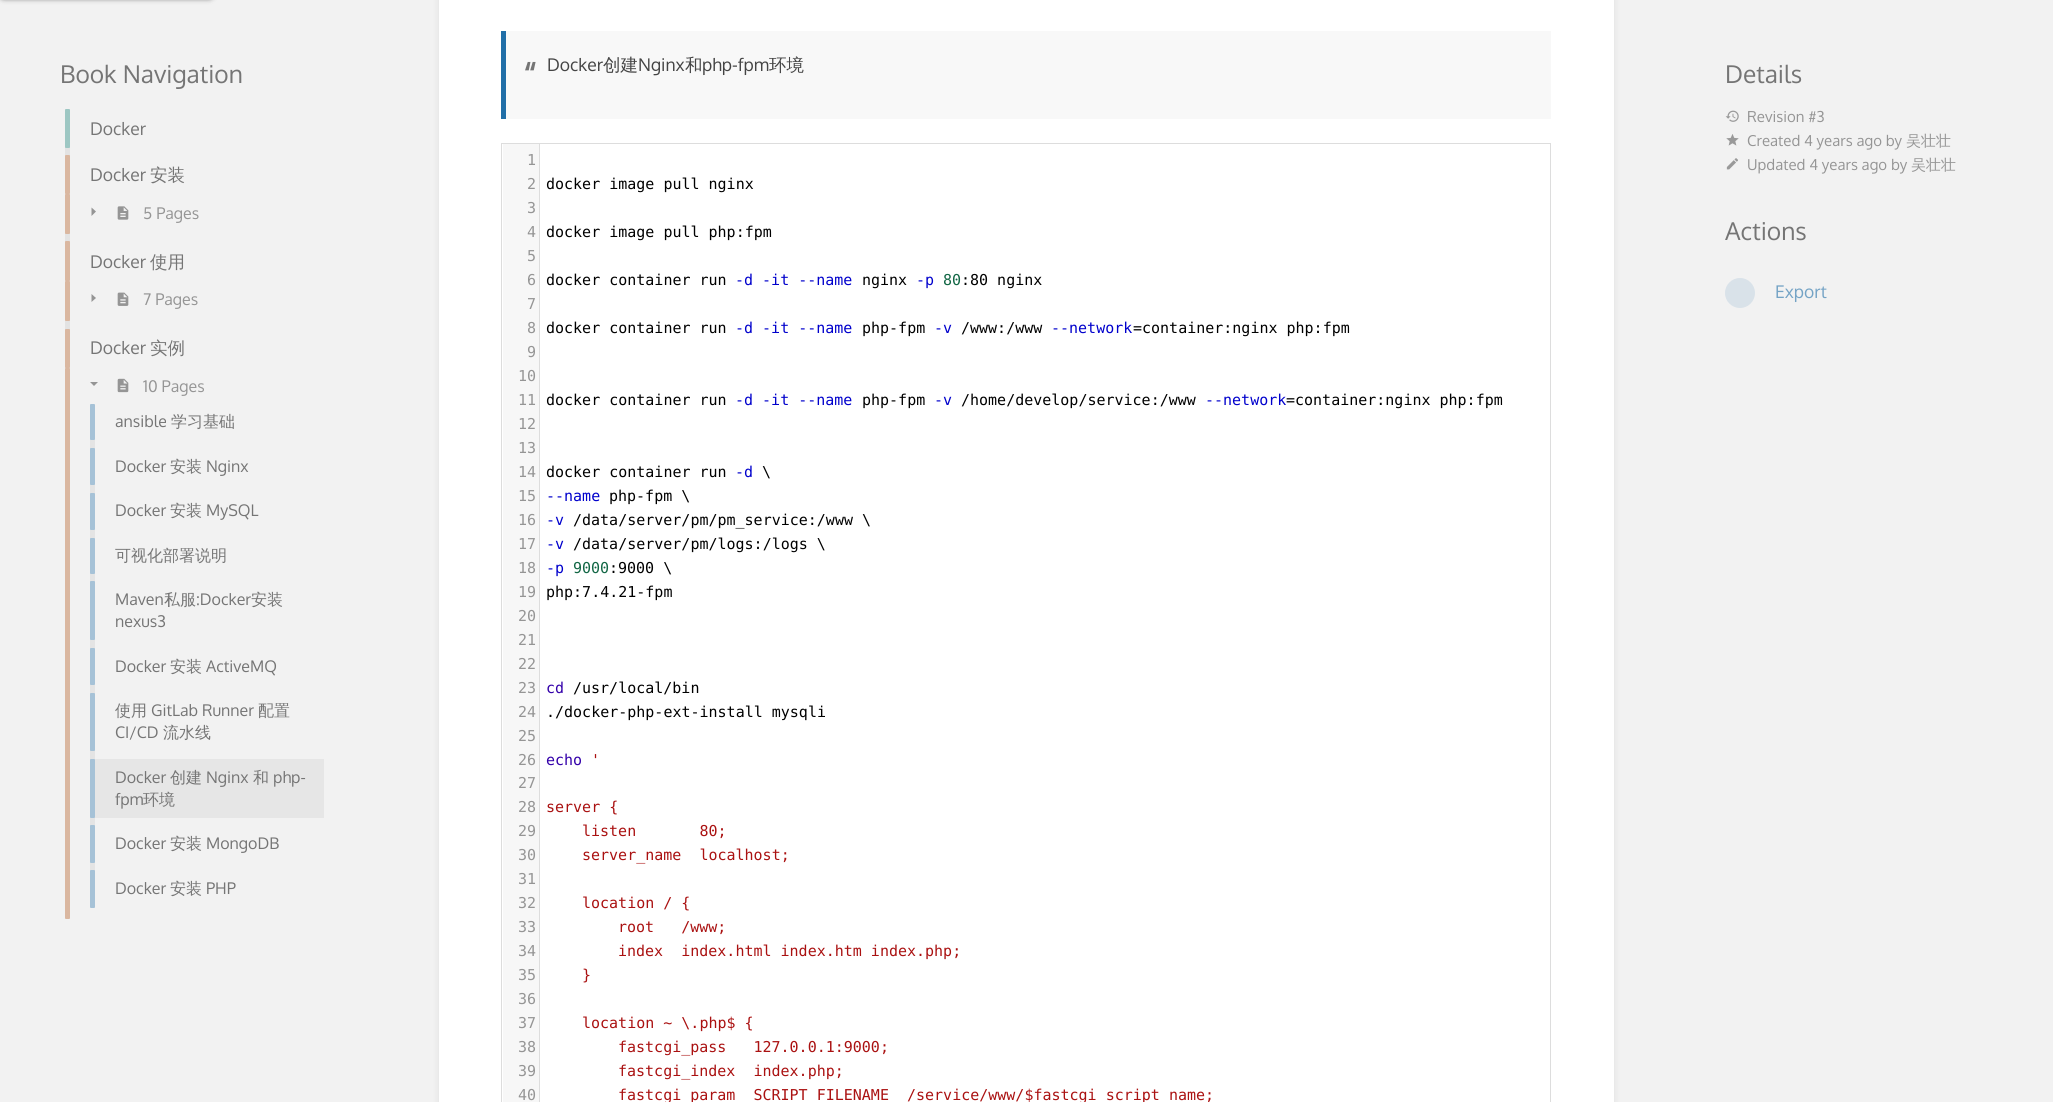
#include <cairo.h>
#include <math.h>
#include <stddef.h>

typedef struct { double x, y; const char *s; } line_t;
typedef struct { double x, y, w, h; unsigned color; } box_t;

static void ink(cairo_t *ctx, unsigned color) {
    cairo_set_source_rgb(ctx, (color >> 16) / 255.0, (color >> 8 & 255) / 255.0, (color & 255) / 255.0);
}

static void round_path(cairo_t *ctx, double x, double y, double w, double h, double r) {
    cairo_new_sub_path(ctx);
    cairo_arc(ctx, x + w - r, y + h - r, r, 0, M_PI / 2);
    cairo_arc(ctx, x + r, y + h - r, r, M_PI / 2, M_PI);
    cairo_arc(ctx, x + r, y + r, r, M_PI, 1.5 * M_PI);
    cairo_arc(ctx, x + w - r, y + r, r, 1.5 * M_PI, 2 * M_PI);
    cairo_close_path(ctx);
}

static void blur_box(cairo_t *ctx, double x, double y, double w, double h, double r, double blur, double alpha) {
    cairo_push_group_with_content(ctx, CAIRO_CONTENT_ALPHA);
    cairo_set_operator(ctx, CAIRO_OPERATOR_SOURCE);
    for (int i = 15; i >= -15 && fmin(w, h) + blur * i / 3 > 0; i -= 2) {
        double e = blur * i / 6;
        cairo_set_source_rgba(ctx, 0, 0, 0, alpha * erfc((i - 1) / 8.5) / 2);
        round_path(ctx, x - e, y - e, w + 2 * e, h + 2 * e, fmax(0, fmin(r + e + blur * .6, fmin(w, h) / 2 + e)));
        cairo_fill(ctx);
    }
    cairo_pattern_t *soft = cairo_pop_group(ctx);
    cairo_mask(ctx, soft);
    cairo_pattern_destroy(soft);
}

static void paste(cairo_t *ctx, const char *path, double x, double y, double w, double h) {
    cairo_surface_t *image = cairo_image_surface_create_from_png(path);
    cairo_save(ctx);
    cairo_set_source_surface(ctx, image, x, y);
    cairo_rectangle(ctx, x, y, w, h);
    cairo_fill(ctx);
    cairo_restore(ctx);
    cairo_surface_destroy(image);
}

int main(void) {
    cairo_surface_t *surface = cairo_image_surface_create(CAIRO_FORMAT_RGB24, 2053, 1102);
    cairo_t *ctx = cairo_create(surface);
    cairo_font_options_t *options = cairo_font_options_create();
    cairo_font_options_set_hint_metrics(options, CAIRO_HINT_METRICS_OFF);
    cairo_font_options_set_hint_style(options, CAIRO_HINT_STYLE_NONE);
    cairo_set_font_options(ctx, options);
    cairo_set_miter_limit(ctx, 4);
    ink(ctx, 0xF2F2F2);
    cairo_paint(ctx);
    ink(ctx, 0xE4E4E4);
    cairo_rectangle(ctx, 90, 439, 5, 432);
    cairo_fill(ctx);
    ink(ctx, 0x000000);
    blur_box(ctx, -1, -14, 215, 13, 6, 2.5, 0.5);
    cairo_select_font_face(ctx, "Oxygen", CAIRO_FONT_SLANT_NORMAL, CAIRO_FONT_WEIGHT_NORMAL);
    cairo_set_font_size(ctx, 24.5);
    ink(ctx, 0x757575);
    cairo_move_to(ctx, 60, 83);
    cairo_show_text(ctx, "Book Navigation");
    ink(ctx, 0xE3E3E3);
    cairo_rectangle(ctx, 65, 147, 5, 222);
    cairo_fill(ctx);
    ink(ctx, 0x9DC7C3);
    round_path(ctx, 65, 109, 5, 39, 1);
    cairo_fill(ctx);
    cairo_set_font_size(ctx, 17.5);
    ink(ctx, 0x757575);
    cairo_move_to(ctx, 90, 135);
    cairo_show_text(ctx, "Docker");
    ink(ctx, 0xDAB7A0);
    round_path(ctx, 65, 155, 5, 39, 1);
    cairo_fill(ctx);
    ink(ctx, 0x757575);
    cairo_move_to(ctx, 90, 181);
    cairo_show_text(ctx, "Docker");
    cairo_select_font_face(ctx, "WenQuanYi Zen Hei Medium", CAIRO_FONT_SLANT_NORMAL, CAIRO_FONT_WEIGHT_NORMAL);
    cairo_move_to(ctx, 150, 181);
    cairo_show_text(ctx, "安装");
    ink(ctx, 0xDAB7A0);
    round_path(ctx, 65, 194, 5, 40, 1);
    cairo_fill(ctx);
    ink(ctx, 0x959595);
    cairo_new_path(ctx);
    cairo_move_to(ctx, 91.5, 216);
    cairo_line_to(ctx, 96, 211.5);
    cairo_line_to(ctx, 91.5, 207.5);
    cairo_close_path(ctx);
    cairo_fill(ctx);
    paste(ctx, "media/1.png", 117, 206, 12, 14);
    cairo_select_font_face(ctx, "Oxygen", CAIRO_FONT_SLANT_NORMAL, CAIRO_FONT_WEIGHT_NORMAL);
    cairo_set_font_size(ctx, 16);
    cairo_move_to(ctx, 143, 219);
    cairo_show_text(ctx, "5 Pages");
    ink(ctx, 0xDAB7A0);
    round_path(ctx, 65, 241, 5, 40, 1);
    cairo_fill(ctx);
    cairo_set_font_size(ctx, 17.5);
    ink(ctx, 0x757575);
    cairo_move_to(ctx, 90, 268);
    cairo_show_text(ctx, "Docker");
    cairo_select_font_face(ctx, "WenQuanYi Zen Hei Medium", CAIRO_FONT_SLANT_NORMAL, CAIRO_FONT_WEIGHT_NORMAL);
    cairo_move_to(ctx, 150, 268);
    cairo_show_text(ctx, "使用");
    ink(ctx, 0xDAB7A0);
    round_path(ctx, 65, 281, 5, 40, 1);
    cairo_fill(ctx);
    ink(ctx, 0x959595);
    cairo_new_path(ctx);
    cairo_move_to(ctx, 91.5, 302);
    cairo_line_to(ctx, 96, 298);
    cairo_line_to(ctx, 91.5, 294);
    cairo_close_path(ctx);
    cairo_fill(ctx);
    paste(ctx, "media/2.png", 117, 292, 12, 14);
    cairo_select_font_face(ctx, "Oxygen", CAIRO_FONT_SLANT_NORMAL, CAIRO_FONT_WEIGHT_NORMAL);
    cairo_set_font_size(ctx, 16);
    cairo_move_to(ctx, 143, 305);
    cairo_show_text(ctx, "7 Pages");
    ink(ctx, 0xDAB7A0);
    round_path(ctx, 65, 329, 5, 39, 1);
    cairo_fill(ctx);
    cairo_set_font_size(ctx, 17.5);
    ink(ctx, 0x757575);
    cairo_move_to(ctx, 90, 354);
    cairo_show_text(ctx, "Docker");
    cairo_select_font_face(ctx, "WenQuanYi Zen Hei Medium", CAIRO_FONT_SLANT_NORMAL, CAIRO_FONT_WEIGHT_NORMAL);
    cairo_move_to(ctx, 150, 354);
    cairo_show_text(ctx, "实例");
    ink(ctx, 0xDAB7A0);
    round_path(ctx, 65, 368, 5, 551, 1);
    cairo_fill(ctx);
    ink(ctx, 0x959595);
    cairo_new_path(ctx);
    cairo_move_to(ctx, 90, 382);
    cairo_line_to(ctx, 94, 386);
    cairo_line_to(ctx, 98, 382);
    cairo_close_path(ctx);
    cairo_fill(ctx);
    paste(ctx, "media/3.png", 117, 378, 12, 15);
    cairo_select_font_face(ctx, "Oxygen", CAIRO_FONT_SLANT_NORMAL, CAIRO_FONT_WEIGHT_NORMAL);
    cairo_set_font_size(ctx, 16);
    cairo_move_to(ctx, 143, 392);
    cairo_show_text(ctx, "10 Pages");
    ink(ctx, 0xA6C2D7);
    round_path(ctx, 90, 404, 5, 36, 1);
    cairo_fill(ctx);
    ink(ctx, 0x757575);
    cairo_move_to(ctx, 115, 427);
    cairo_show_text(ctx, "ansible");
    cairo_select_font_face(ctx, "WenQuanYi Zen Hei Medium", CAIRO_FONT_SLANT_NORMAL, CAIRO_FONT_WEIGHT_NORMAL);
    cairo_move_to(ctx, 171, 427);
    cairo_show_text(ctx, "学习基础");
    ink(ctx, 0xA6C2D7);
    round_path(ctx, 90, 448, 5, 37, 1);
    cairo_fill(ctx);
    cairo_select_font_face(ctx, "Oxygen", CAIRO_FONT_SLANT_NORMAL, CAIRO_FONT_WEIGHT_NORMAL);
    ink(ctx, 0x757575);
    cairo_move_to(ctx, 115, 472);
    cairo_show_text(ctx, "Docker");
    cairo_select_font_face(ctx, "WenQuanYi Zen Hei Medium", CAIRO_FONT_SLANT_NORMAL, CAIRO_FONT_WEIGHT_NORMAL);
    cairo_move_to(ctx, 170, 472);
    cairo_show_text(ctx, "安装");
    cairo_select_font_face(ctx, "Oxygen", CAIRO_FONT_SLANT_NORMAL, CAIRO_FONT_WEIGHT_NORMAL);
    cairo_move_to(ctx, 206, 472);
    cairo_show_text(ctx, "Nginx");
    ink(ctx, 0xA6C2D7);
    round_path(ctx, 90, 493, 5, 37, 1);
    cairo_fill(ctx);
    ink(ctx, 0x757575);
    cairo_move_to(ctx, 115, 516);
    cairo_show_text(ctx, "Docker");
    cairo_select_font_face(ctx, "WenQuanYi Zen Hei Medium", CAIRO_FONT_SLANT_NORMAL, CAIRO_FONT_WEIGHT_NORMAL);
    cairo_move_to(ctx, 170, 516);
    cairo_show_text(ctx, "安装");
    cairo_select_font_face(ctx, "Oxygen", CAIRO_FONT_SLANT_NORMAL, CAIRO_FONT_WEIGHT_NORMAL);
    cairo_move_to(ctx, 206, 516);
    cairo_show_text(ctx, "MySQL");
    ink(ctx, 0xA6C2D7);
    round_path(ctx, 90, 538, 5, 36, 1);
    cairo_fill(ctx);
    cairo_select_font_face(ctx, "WenQuanYi Zen Hei Medium", CAIRO_FONT_SLANT_NORMAL, CAIRO_FONT_WEIGHT_NORMAL);
    ink(ctx, 0x757575);
    cairo_move_to(ctx, 115, 561);
    cairo_show_text(ctx, "可视化部署说明");
    ink(ctx, 0xA6C2D7);
    round_path(ctx, 90, 581, 5, 59, 1);
    cairo_fill(ctx);
    cairo_select_font_face(ctx, "Oxygen", CAIRO_FONT_SLANT_NORMAL, CAIRO_FONT_WEIGHT_NORMAL);
    ink(ctx, 0x757575);
    cairo_move_to(ctx, 115, 605);
    cairo_show_text(ctx, "Maven");
    cairo_select_font_face(ctx, "WenQuanYi Zen Hei Medium", CAIRO_FONT_SLANT_NORMAL, CAIRO_FONT_WEIGHT_NORMAL);
    cairo_move_to(ctx, 164, 605);
    cairo_show_text(ctx, "私服");
    cairo_select_font_face(ctx, "Oxygen", CAIRO_FONT_SLANT_NORMAL, CAIRO_FONT_WEIGHT_NORMAL);
    cairo_move_to(ctx, 196, 605);
    cairo_show_text(ctx, ":Docker");
    cairo_select_font_face(ctx, "WenQuanYi Zen Hei Medium", CAIRO_FONT_SLANT_NORMAL, CAIRO_FONT_WEIGHT_NORMAL);
    cairo_move_to(ctx, 251, 605);
    cairo_show_text(ctx, "安装");
    cairo_select_font_face(ctx, "Oxygen", CAIRO_FONT_SLANT_NORMAL, CAIRO_FONT_WEIGHT_NORMAL);
    cairo_move_to(ctx, 115, 627);
    cairo_show_text(ctx, "nexus3");
    ink(ctx, 0xA6C2D7);
    round_path(ctx, 90, 648, 5, 37, 1);
    cairo_fill(ctx);
    ink(ctx, 0x757575);
    cairo_move_to(ctx, 115, 672);
    cairo_show_text(ctx, "Docker");
    cairo_select_font_face(ctx, "WenQuanYi Zen Hei Medium", CAIRO_FONT_SLANT_NORMAL, CAIRO_FONT_WEIGHT_NORMAL);
    cairo_move_to(ctx, 170, 672);
    cairo_show_text(ctx, "安装");
    cairo_select_font_face(ctx, "Oxygen", CAIRO_FONT_SLANT_NORMAL, CAIRO_FONT_WEIGHT_NORMAL);
    cairo_move_to(ctx, 206, 672);
    cairo_show_text(ctx, "ActiveMQ");
    ink(ctx, 0xA6C2D7);
    round_path(ctx, 90, 693, 5, 58, 1);
    cairo_fill(ctx);
    cairo_select_font_face(ctx, "WenQuanYi Zen Hei Medium", CAIRO_FONT_SLANT_NORMAL, CAIRO_FONT_WEIGHT_NORMAL);
    ink(ctx, 0x757575);
    cairo_move_to(ctx, 115, 716);
    cairo_show_text(ctx, "使用");
    cairo_select_font_face(ctx, "Oxygen", CAIRO_FONT_SLANT_NORMAL, CAIRO_FONT_WEIGHT_NORMAL);
    cairo_move_to(ctx, 151, 716);
    cairo_show_text(ctx, "GitLab Runner");
    cairo_select_font_face(ctx, "WenQuanYi Zen Hei Medium", CAIRO_FONT_SLANT_NORMAL, CAIRO_FONT_WEIGHT_NORMAL);
    cairo_move_to(ctx, 258, 716);
    cairo_show_text(ctx, "配置");
    cairo_select_font_face(ctx, "Oxygen", CAIRO_FONT_SLANT_NORMAL, CAIRO_FONT_WEIGHT_NORMAL);
    cairo_move_to(ctx, 115, 738);
    cairo_show_text(ctx, "CI/CD");
    cairo_select_font_face(ctx, "WenQuanYi Zen Hei Medium", CAIRO_FONT_SLANT_NORMAL, CAIRO_FONT_WEIGHT_NORMAL);
    cairo_move_to(ctx, 163, 738);
    cairo_show_text(ctx, "流水线");
    ink(ctx, 0xE6E6E6);
    cairo_rectangle(ctx, 95, 759, 229, 59);
    cairo_fill(ctx);
    ink(ctx, 0xA6C2D7);
    round_path(ctx, 90, 759, 5, 59, 1);
    cairo_fill(ctx);
    cairo_select_font_face(ctx, "Oxygen", CAIRO_FONT_SLANT_NORMAL, CAIRO_FONT_WEIGHT_NORMAL);
    ink(ctx, 0x757575);
    cairo_move_to(ctx, 115, 783);
    cairo_show_text(ctx, "Docker");
    cairo_select_font_face(ctx, "WenQuanYi Zen Hei Medium", CAIRO_FONT_SLANT_NORMAL, CAIRO_FONT_WEIGHT_NORMAL);
    cairo_move_to(ctx, 170, 783);
    cairo_show_text(ctx, "创建");
    cairo_select_font_face(ctx, "Oxygen", CAIRO_FONT_SLANT_NORMAL, CAIRO_FONT_WEIGHT_NORMAL);
    cairo_move_to(ctx, 206, 783);
    cairo_show_text(ctx, "Nginx");
    cairo_select_font_face(ctx, "WenQuanYi Zen Hei Medium", CAIRO_FONT_SLANT_NORMAL, CAIRO_FONT_WEIGHT_NORMAL);
    cairo_move_to(ctx, 253, 783);
    cairo_show_text(ctx, "和");
    cairo_select_font_face(ctx, "Oxygen", CAIRO_FONT_SLANT_NORMAL, CAIRO_FONT_WEIGHT_NORMAL);
    cairo_move_to(ctx, 273, 783);
    cairo_show_text(ctx, "php-");
    cairo_move_to(ctx, 115, 805);
    cairo_show_text(ctx, "fpm");
    cairo_select_font_face(ctx, "WenQuanYi Zen Hei Medium", CAIRO_FONT_SLANT_NORMAL, CAIRO_FONT_WEIGHT_NORMAL);
    cairo_move_to(ctx, 143, 805);
    cairo_show_text(ctx, "环境");
    ink(ctx, 0xA6C2D7);
    round_path(ctx, 90, 825, 5, 38, 1);
    cairo_fill(ctx);
    cairo_select_font_face(ctx, "Oxygen", CAIRO_FONT_SLANT_NORMAL, CAIRO_FONT_WEIGHT_NORMAL);
    ink(ctx, 0x757575);
    cairo_move_to(ctx, 115, 849);
    cairo_show_text(ctx, "Docker");
    cairo_select_font_face(ctx, "WenQuanYi Zen Hei Medium", CAIRO_FONT_SLANT_NORMAL, CAIRO_FONT_WEIGHT_NORMAL);
    cairo_move_to(ctx, 170, 849);
    cairo_show_text(ctx, "安装");
    cairo_select_font_face(ctx, "Oxygen", CAIRO_FONT_SLANT_NORMAL, CAIRO_FONT_WEIGHT_NORMAL);
    cairo_move_to(ctx, 206, 849);
    cairo_show_text(ctx, "MongoDB");
    ink(ctx, 0xA6C2D7);
    round_path(ctx, 90, 870, 5, 38, 1);
    cairo_fill(ctx);
    ink(ctx, 0x757575);
    cairo_move_to(ctx, 115, 894);
    cairo_show_text(ctx, "Docker");
    cairo_select_font_face(ctx, "WenQuanYi Zen Hei Medium", CAIRO_FONT_SLANT_NORMAL, CAIRO_FONT_WEIGHT_NORMAL);
    cairo_move_to(ctx, 170, 894);
    cairo_show_text(ctx, "安装");
    cairo_select_font_face(ctx, "Oxygen", CAIRO_FONT_SLANT_NORMAL, CAIRO_FONT_WEIGHT_NORMAL);
    cairo_move_to(ctx, 206, 894);
    cairo_show_text(ctx, "PHP");
    ink(ctx, 0x000000);
    blur_box(ctx, 440, -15, 1173, 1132, 2.5, 4, 0.1);
    {
        static const box_t items[] = {
            {439, 0, 1175, 1102, 0xFFFFFF},
            {506, 31, 1045, 88, 0xF8F8F8},
            {501, 31, 5, 88, 0x206EA7},
        };
        for (size_t i = 0; i < sizeof items / sizeof *items; i++) {
            ink(ctx, items[i].color);
            cairo_rectangle(ctx, items[i].x, items[i].y, items[i].w, items[i].h);
            cairo_fill(ctx);
        }
    }
    cairo_select_font_face(ctx, "Oxygen", CAIRO_FONT_SLANT_NORMAL, CAIRO_FONT_WEIGHT_BOLD);
    cairo_set_font_size(ctx, 35);
    ink(ctx, 0x757575);
    cairo_move_to(ctx, 522, 87);
    cairo_show_text(ctx, "“");
    cairo_select_font_face(ctx, "Oxygen", CAIRO_FONT_SLANT_NORMAL, CAIRO_FONT_WEIGHT_NORMAL);
    cairo_set_font_size(ctx, 17.5);
    ink(ctx, 0x444444);
    cairo_move_to(ctx, 547, 71);
    cairo_show_text(ctx, "Docker");
    cairo_select_font_face(ctx, "WenQuanYi Zen Hei Medium", CAIRO_FONT_SLANT_NORMAL, CAIRO_FONT_WEIGHT_NORMAL);
    cairo_move_to(ctx, 603, 71);
    cairo_show_text(ctx, "创建");
    cairo_select_font_face(ctx, "Oxygen", CAIRO_FONT_SLANT_NORMAL, CAIRO_FONT_WEIGHT_NORMAL);
    cairo_move_to(ctx, 638, 71);
    cairo_show_text(ctx, "Nginx");
    cairo_select_font_face(ctx, "WenQuanYi Zen Hei Medium", CAIRO_FONT_SLANT_NORMAL, CAIRO_FONT_WEIGHT_NORMAL);
    cairo_move_to(ctx, 685, 71);
    cairo_show_text(ctx, "和");
    cairo_select_font_face(ctx, "Oxygen", CAIRO_FONT_SLANT_NORMAL, CAIRO_FONT_WEIGHT_NORMAL);
    cairo_move_to(ctx, 702, 71);
    cairo_show_text(ctx, "php-fpm");
    cairo_select_font_face(ctx, "WenQuanYi Zen Hei Medium", CAIRO_FONT_SLANT_NORMAL, CAIRO_FONT_WEIGHT_NORMAL);
    cairo_move_to(ctx, 769, 71);
    cairo_show_text(ctx, "环境");
    cairo_rectangle(ctx, 501.5, 143.5, 1049, 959);
    ink(ctx, 0xDDDDDD);
    cairo_set_line_width(ctx, 1);
    cairo_stroke(ctx);
    ink(ctx, 0xF7F7F7);
    cairo_rectangle(ctx, 503, 144, 36, 958);
    cairo_fill(ctx);
    ink(ctx, 0xDDDDDD);
    cairo_rectangle(ctx, 539, 144, 1, 958);
    cairo_fill(ctx);
    cairo_select_font_face(ctx, "DejaVu Sans Mono", CAIRO_FONT_SLANT_NORMAL, CAIRO_FONT_WEIGHT_NORMAL);
    cairo_set_font_size(ctx, 15);
    ink(ctx, 0x959595);
    cairo_move_to(ctx, 527, 165);
    cairo_show_text(ctx, "1");
    cairo_move_to(ctx, 527, 189);
    cairo_show_text(ctx, "2");
    ink(ctx, 0x000000);
    cairo_move_to(ctx, 546, 189);
    cairo_show_text(ctx, "docker image pull nginx");
    ink(ctx, 0x959595);
    cairo_move_to(ctx, 527, 213);
    cairo_show_text(ctx, "3");
    cairo_move_to(ctx, 527, 237);
    cairo_show_text(ctx, "4");
    ink(ctx, 0x000000);
    cairo_move_to(ctx, 546, 237);
    cairo_show_text(ctx, "docker image pull php:fpm");
    ink(ctx, 0x959595);
    cairo_move_to(ctx, 527, 261);
    cairo_show_text(ctx, "5");
    cairo_move_to(ctx, 527, 285);
    cairo_show_text(ctx, "6");
    ink(ctx, 0x000000);
    cairo_move_to(ctx, 546, 285);
    cairo_show_text(ctx, "docker container run");
    ink(ctx, 0x0000CC);
    cairo_move_to(ctx, 735, 285);
    cairo_show_text(ctx, "-d -it --name");
    ink(ctx, 0x000000);
    cairo_move_to(ctx, 862, 285);
    cairo_show_text(ctx, "nginx");
    ink(ctx, 0x0000CC);
    cairo_move_to(ctx, 916, 285);
    cairo_show_text(ctx, "-p");
    ink(ctx, 0x116644);
    cairo_move_to(ctx, 943, 285);
    cairo_show_text(ctx, "80");
    ink(ctx, 0x000000);
    cairo_move_to(ctx, 961, 285);
    cairo_show_text(ctx, ":80 nginx");
    ink(ctx, 0x959595);
    cairo_move_to(ctx, 527, 309);
    cairo_show_text(ctx, "7");
    cairo_move_to(ctx, 527, 333);
    cairo_show_text(ctx, "8");
    ink(ctx, 0x000000);
    cairo_move_to(ctx, 546, 333);
    cairo_show_text(ctx, "docker container run");
    ink(ctx, 0x0000CC);
    cairo_move_to(ctx, 735, 333);
    cairo_show_text(ctx, "-d -it --name");
    ink(ctx, 0x000000);
    cairo_move_to(ctx, 862, 333);
    cairo_show_text(ctx, "php-fpm");
    ink(ctx, 0x0000CC);
    cairo_move_to(ctx, 934, 333);
    cairo_show_text(ctx, "-v");
    ink(ctx, 0x000000);
    cairo_move_to(ctx, 961, 333);
    cairo_show_text(ctx, "/www:/www");
    ink(ctx, 0x0000CC);
    cairo_move_to(ctx, 1051, 333);
    cairo_show_text(ctx, "--network");
    ink(ctx, 0x000000);
    cairo_move_to(ctx, 1133, 333);
    cairo_show_text(ctx, "=container:nginx php:fpm");
    ink(ctx, 0x959595);
    {
        static const line_t items[] = {
            {527, 357, "9"},
            {518, 381, "10"},
            {518, 405, "11"},
        };
        for (size_t i = 0; i < sizeof items / sizeof *items; i++) {
            cairo_move_to(ctx, items[i].x, items[i].y);
            cairo_show_text(ctx, items[i].s);
        }
    }
    ink(ctx, 0x000000);
    cairo_move_to(ctx, 546, 405);
    cairo_show_text(ctx, "docker container run");
    ink(ctx, 0x0000CC);
    cairo_move_to(ctx, 735, 405);
    cairo_show_text(ctx, "-d -it --name");
    ink(ctx, 0x000000);
    cairo_move_to(ctx, 862, 405);
    cairo_show_text(ctx, "php-fpm");
    ink(ctx, 0x0000CC);
    cairo_move_to(ctx, 934, 405);
    cairo_show_text(ctx, "-v");
    ink(ctx, 0x000000);
    cairo_move_to(ctx, 961, 405);
    cairo_show_text(ctx, "/home/develop/service:/www");
    ink(ctx, 0x0000CC);
    cairo_move_to(ctx, 1205, 405);
    cairo_show_text(ctx, "--network");
    ink(ctx, 0x000000);
    cairo_move_to(ctx, 1286, 405);
    cairo_show_text(ctx, "=container:nginx php:fpm");
    ink(ctx, 0x959595);
    {
        static const line_t items[] = {
            {518, 429, "12"},
            {518, 453, "13"},
            {518, 477, "14"},
        };
        for (size_t i = 0; i < sizeof items / sizeof *items; i++) {
            cairo_move_to(ctx, items[i].x, items[i].y);
            cairo_show_text(ctx, items[i].s);
        }
    }
    ink(ctx, 0x000000);
    cairo_move_to(ctx, 546, 477);
    cairo_show_text(ctx, "docker container run");
    ink(ctx, 0x0000CC);
    cairo_move_to(ctx, 735, 477);
    cairo_show_text(ctx, "-d");
    ink(ctx, 0x000000);
    cairo_move_to(ctx, 762, 477);
    cairo_show_text(ctx, "\\");
    ink(ctx, 0x959595);
    cairo_move_to(ctx, 518, 501);
    cairo_show_text(ctx, "15");
    ink(ctx, 0x0000CC);
    cairo_move_to(ctx, 546, 501);
    cairo_show_text(ctx, "--name");
    ink(ctx, 0x000000);
    cairo_move_to(ctx, 609, 501);
    cairo_show_text(ctx, "php-fpm \\");
    ink(ctx, 0x959595);
    cairo_move_to(ctx, 518, 525);
    cairo_show_text(ctx, "16");
    ink(ctx, 0x0000CC);
    cairo_move_to(ctx, 546, 525);
    cairo_show_text(ctx, "-v");
    ink(ctx, 0x000000);
    cairo_move_to(ctx, 573, 525);
    cairo_show_text(ctx, "/data/server/pm/pm_service:/www \\");
    ink(ctx, 0x959595);
    cairo_move_to(ctx, 518, 549);
    cairo_show_text(ctx, "17");
    ink(ctx, 0x0000CC);
    cairo_move_to(ctx, 546, 549);
    cairo_show_text(ctx, "-v");
    ink(ctx, 0x000000);
    cairo_move_to(ctx, 573, 549);
    cairo_show_text(ctx, "/data/server/pm/logs:/logs \\");
    ink(ctx, 0x959595);
    cairo_move_to(ctx, 518, 573);
    cairo_show_text(ctx, "18");
    ink(ctx, 0x0000CC);
    cairo_move_to(ctx, 546, 573);
    cairo_show_text(ctx, "-p");
    ink(ctx, 0x116644);
    cairo_move_to(ctx, 573, 573);
    cairo_show_text(ctx, "9000");
    ink(ctx, 0x000000);
    cairo_move_to(ctx, 609, 573);
    cairo_show_text(ctx, ":9000 \\");
    ink(ctx, 0x959595);
    cairo_move_to(ctx, 518, 597);
    cairo_show_text(ctx, "19");
    ink(ctx, 0x000000);
    cairo_move_to(ctx, 546, 597);
    cairo_show_text(ctx, "php:7.4.21-fpm");
    ink(ctx, 0x959595);
    {
        static const line_t items[] = {
            {518, 621, "20"},
            {518, 645, "21"},
            {518, 669, "22"},
            {518, 693, "23"},
        };
        for (size_t i = 0; i < sizeof items / sizeof *items; i++) {
            cairo_move_to(ctx, items[i].x, items[i].y);
            cairo_show_text(ctx, items[i].s);
        }
    }
    ink(ctx, 0x3300AA);
    cairo_move_to(ctx, 546, 693);
    cairo_show_text(ctx, "cd");
    ink(ctx, 0x000000);
    cairo_move_to(ctx, 573, 693);
    cairo_show_text(ctx, "/usr/local/bin");
    ink(ctx, 0x959595);
    cairo_move_to(ctx, 518, 717);
    cairo_show_text(ctx, "24");
    ink(ctx, 0x000000);
    cairo_move_to(ctx, 546, 717);
    cairo_show_text(ctx, "./docker-php-ext-install mysqli");
    ink(ctx, 0x959595);
    cairo_move_to(ctx, 518, 741);
    cairo_show_text(ctx, "25");
    cairo_move_to(ctx, 518, 765);
    cairo_show_text(ctx, "26");
    ink(ctx, 0x3300AA);
    cairo_move_to(ctx, 546, 765);
    cairo_show_text(ctx, "echo");
    ink(ctx, 0xAA1111);
    cairo_move_to(ctx, 591, 765);
    cairo_show_text(ctx, "'");
    ink(ctx, 0x959595);
    cairo_move_to(ctx, 518, 788);
    cairo_show_text(ctx, "27");
    cairo_move_to(ctx, 518, 812);
    cairo_show_text(ctx, "28");
    ink(ctx, 0xAA1111);
    cairo_move_to(ctx, 546, 812);
    cairo_show_text(ctx, "server {");
    ink(ctx, 0x959595);
    cairo_move_to(ctx, 518, 836);
    cairo_show_text(ctx, "29");
    ink(ctx, 0xAA1111);
    cairo_move_to(ctx, 582, 836);
    cairo_show_text(ctx, "listen       80;");
    ink(ctx, 0x959595);
    cairo_move_to(ctx, 518, 860);
    cairo_show_text(ctx, "30");
    ink(ctx, 0xAA1111);
    cairo_move_to(ctx, 582, 860);
    cairo_show_text(ctx, "server_name  localhost;");
    ink(ctx, 0x959595);
    cairo_move_to(ctx, 518, 884);
    cairo_show_text(ctx, "31");
    cairo_move_to(ctx, 518, 908);
    cairo_show_text(ctx, "32");
    ink(ctx, 0xAA1111);
    cairo_move_to(ctx, 582, 908);
    cairo_show_text(ctx, "location / {");
    ink(ctx, 0x959595);
    cairo_move_to(ctx, 518, 932);
    cairo_show_text(ctx, "33");
    ink(ctx, 0xAA1111);
    cairo_move_to(ctx, 618, 932);
    cairo_show_text(ctx, "root   /www;");
    ink(ctx, 0x959595);
    cairo_move_to(ctx, 518, 956);
    cairo_show_text(ctx, "34");
    ink(ctx, 0xAA1111);
    cairo_move_to(ctx, 618, 956);
    cairo_show_text(ctx, "index  index.html index.htm index.php;");
    ink(ctx, 0x959595);
    cairo_move_to(ctx, 518, 980);
    cairo_show_text(ctx, "35");
    ink(ctx, 0xAA1111);
    cairo_move_to(ctx, 582, 980);
    cairo_show_text(ctx, "}");
    ink(ctx, 0x959595);
    cairo_move_to(ctx, 518, 1004);
    cairo_show_text(ctx, "36");
    cairo_move_to(ctx, 518, 1028);
    cairo_show_text(ctx, "37");
    ink(ctx, 0xAA1111);
    cairo_move_to(ctx, 582, 1028);
    cairo_show_text(ctx, "location ~ \\.php$ {");
    ink(ctx, 0x959595);
    cairo_move_to(ctx, 518, 1052);
    cairo_show_text(ctx, "38");
    ink(ctx, 0xAA1111);
    cairo_move_to(ctx, 618, 1052);
    cairo_show_text(ctx, "fastcgi_pass   127.0.0.1:9000;");
    ink(ctx, 0x959595);
    cairo_move_to(ctx, 518, 1076);
    cairo_show_text(ctx, "39");
    ink(ctx, 0xAA1111);
    cairo_move_to(ctx, 618, 1076);
    cairo_show_text(ctx, "fastcgi_index  index.php;");
    ink(ctx, 0x959595);
    cairo_move_to(ctx, 518, 1100);
    cairo_show_text(ctx, "40");
    ink(ctx, 0xAA1111);
    cairo_move_to(ctx, 618, 1100);
    cairo_show_text(ctx, "fastcgi_param  SCRIPT_FILENAME  /service/www/$fastcgi_script_name;");
    cairo_select_font_face(ctx, "Oxygen", CAIRO_FONT_SLANT_NORMAL, CAIRO_FONT_WEIGHT_NORMAL);
    cairo_set_font_size(ctx, 24.5);
    ink(ctx, 0x757575);
    cairo_move_to(ctx, 1725, 83);
    cairo_show_text(ctx, "Details");
    paste(ctx, "media/4.png", 1725, 110, 14, 12);
    cairo_set_font_size(ctx, 15);
    ink(ctx, 0x959595);
    cairo_move_to(ctx, 1747, 122);
    cairo_show_text(ctx, "Revision #3");
    paste(ctx, "media/5.png", 1726, 134, 13, 12);
    cairo_move_to(ctx, 1747, 146);
    cairo_show_text(ctx, "Created 4 years ago by");
    cairo_select_font_face(ctx, "WenQuanYi Zen Hei Medium", CAIRO_FONT_SLANT_NORMAL, CAIRO_FONT_WEIGHT_NORMAL);
    cairo_move_to(ctx, 1906, 146);
    cairo_show_text(ctx, "吴壮壮");
    paste(ctx, "media/6.png", 1726, 158, 12, 12);
    cairo_select_font_face(ctx, "Oxygen", CAIRO_FONT_SLANT_NORMAL, CAIRO_FONT_WEIGHT_NORMAL);
    cairo_move_to(ctx, 1747, 170);
    cairo_show_text(ctx, "Updated 4 years ago by");
    cairo_select_font_face(ctx, "WenQuanYi Zen Hei Medium", CAIRO_FONT_SLANT_NORMAL, CAIRO_FONT_WEIGHT_NORMAL);
    cairo_move_to(ctx, 1911, 170);
    cairo_show_text(ctx, "吴壮壮");
    cairo_select_font_face(ctx, "Oxygen", CAIRO_FONT_SLANT_NORMAL, CAIRO_FONT_WEIGHT_NORMAL);
    cairo_set_font_size(ctx, 24.5);
    ink(ctx, 0x757575);
    cairo_move_to(ctx, 1725, 240);
    cairo_show_text(ctx, "Actions");
    ink(ctx, 0xD9E2E9);
    cairo_new_path(ctx);
    cairo_arc(ctx, 1740, 293, 15, 0, 2 * M_PI);
    cairo_fill(ctx);
    cairo_set_font_size(ctx, 17.5);
    ink(ctx, 0x74A3C5);
    cairo_move_to(ctx, 1775, 298);
    cairo_show_text(ctx, "Export");
    cairo_surface_write_to_png(surface, "image.png");
    cairo_font_options_destroy(options);
    cairo_destroy(ctx);
    cairo_surface_destroy(surface);
    return 0;
}
